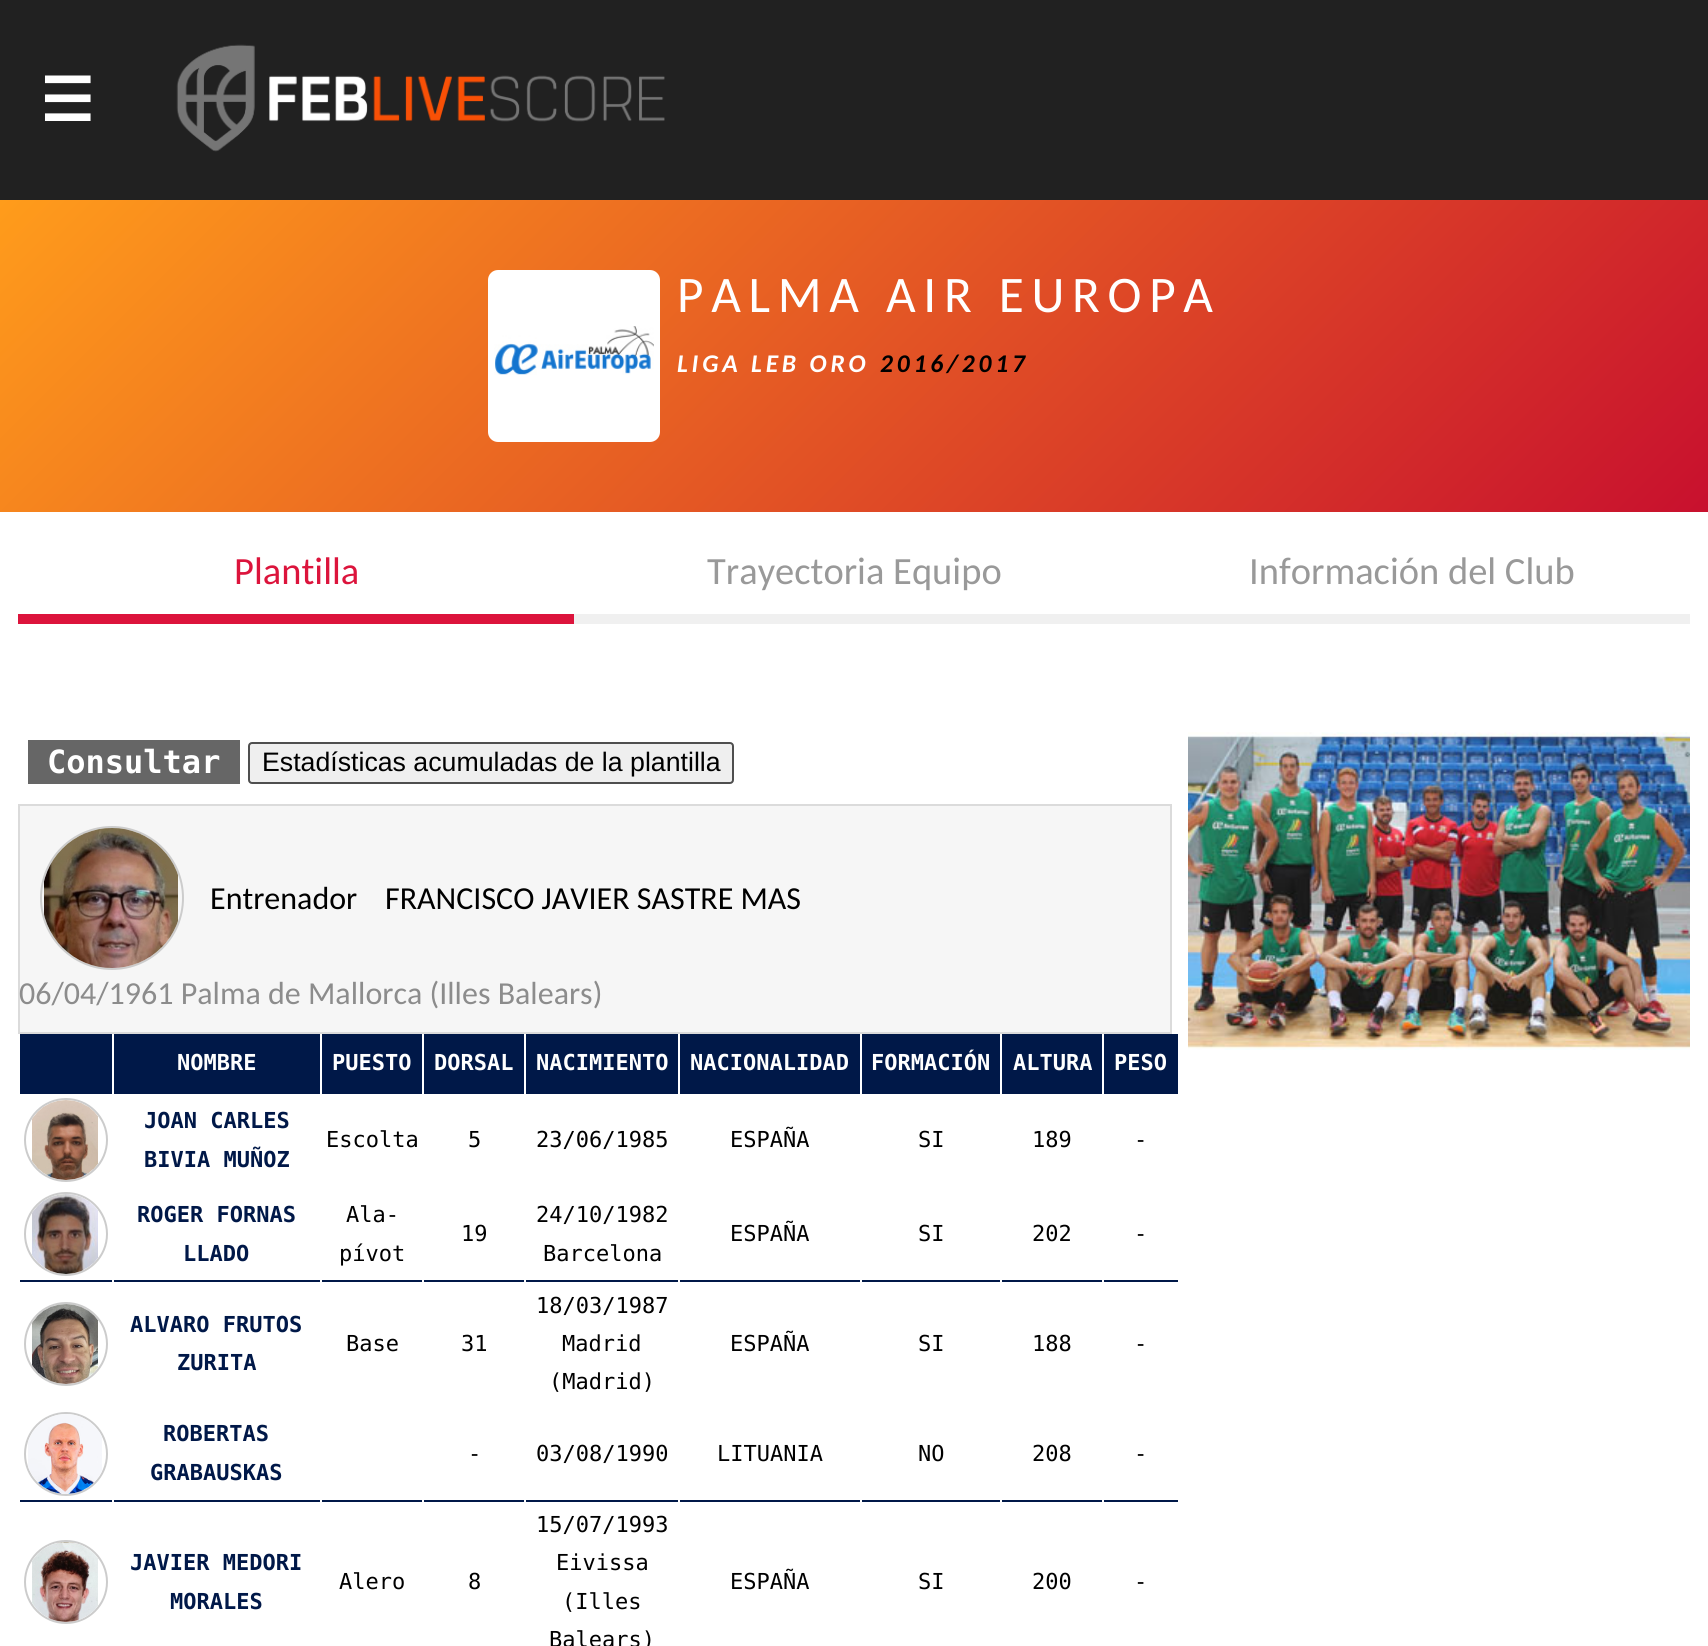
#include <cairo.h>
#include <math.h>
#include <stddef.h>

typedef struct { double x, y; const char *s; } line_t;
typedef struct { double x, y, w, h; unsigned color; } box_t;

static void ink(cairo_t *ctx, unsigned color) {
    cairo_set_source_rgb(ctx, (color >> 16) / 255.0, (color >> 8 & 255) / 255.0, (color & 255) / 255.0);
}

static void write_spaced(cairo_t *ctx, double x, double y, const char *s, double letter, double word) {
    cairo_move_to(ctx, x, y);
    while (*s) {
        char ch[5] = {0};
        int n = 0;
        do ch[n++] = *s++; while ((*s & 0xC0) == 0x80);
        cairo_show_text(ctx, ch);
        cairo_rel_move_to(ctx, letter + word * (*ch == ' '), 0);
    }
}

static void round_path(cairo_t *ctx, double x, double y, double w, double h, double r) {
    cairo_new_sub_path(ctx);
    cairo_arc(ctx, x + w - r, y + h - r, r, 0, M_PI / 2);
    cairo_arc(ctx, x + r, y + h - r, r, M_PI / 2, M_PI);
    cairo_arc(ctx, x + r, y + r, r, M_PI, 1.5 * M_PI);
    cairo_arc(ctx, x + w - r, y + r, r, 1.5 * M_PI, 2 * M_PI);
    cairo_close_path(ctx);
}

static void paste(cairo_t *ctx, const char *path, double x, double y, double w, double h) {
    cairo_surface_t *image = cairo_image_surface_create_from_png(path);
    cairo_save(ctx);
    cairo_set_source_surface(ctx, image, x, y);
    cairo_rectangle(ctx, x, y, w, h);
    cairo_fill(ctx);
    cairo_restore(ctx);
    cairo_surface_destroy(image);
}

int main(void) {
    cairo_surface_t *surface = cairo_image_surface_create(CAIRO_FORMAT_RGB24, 1708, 1646);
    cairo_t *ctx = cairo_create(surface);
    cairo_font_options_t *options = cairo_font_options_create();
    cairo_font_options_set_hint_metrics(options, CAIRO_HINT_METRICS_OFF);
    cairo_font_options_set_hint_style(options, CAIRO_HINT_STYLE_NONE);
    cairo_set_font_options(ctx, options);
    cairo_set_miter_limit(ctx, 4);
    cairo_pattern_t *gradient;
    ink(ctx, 0x212121);
    cairo_paint(ctx);
    cairo_select_font_face(ctx, "DejaVu Sans", CAIRO_FONT_SLANT_NORMAL, CAIRO_FONT_WEIGHT_BOLD);
    cairo_set_font_size(ctx, 60);
    ink(ctx, 0xFFFFFF);
    cairo_move_to(ctx, 40, 121);
    cairo_show_text(ctx, "☰");
    paste(ctx, "media/1.png", 176, 44, 489, 108);
    cairo_rectangle(ctx, 0, 512, 1708, 1134);
    cairo_fill(ctx);
    gradient = cairo_pattern_create_linear(349, -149, 1359, 861);
    cairo_pattern_add_color_stop_rgba(gradient, 0, 1, 0.612, 0.106, 1);
    cairo_pattern_add_color_stop_rgba(gradient, 1, 0.784, 0.063, 0.18, 1);
    cairo_set_source(ctx, gradient);
    cairo_pattern_destroy(gradient);
    cairo_rectangle(ctx, 0, 200, 1708, 312);
    cairo_fill(ctx);
    ink(ctx, 0xFFFFFF);
    round_path(ctx, 488, 270, 172, 172, 10);
    cairo_fill(ctx);
    paste(ctx, "media/2.png", 494, 326, 160, 49);
    cairo_select_font_face(ctx, "Carlito", CAIRO_FONT_SLANT_NORMAL, CAIRO_FONT_WEIGHT_NORMAL);
    cairo_set_font_size(ctx, 51.25);
    write_spaced(ctx, 677, 312, "PALMA AIR EUROPA", 7.7, 0);
    cairo_select_font_face(ctx, "Carlito", CAIRO_FONT_SLANT_ITALIC, CAIRO_FONT_WEIGHT_BOLD);
    cairo_set_font_size(ctx, 25.5);
    write_spaced(ctx, 677, 372, "LIGA LEB ORO", 3.8, 0);
    ink(ctx, 0x000000);
    write_spaced(ctx, 880, 372, "2016/2017", 3.8, 0);
    ink(ctx, 0xDC143C);
    cairo_rectangle(ctx, 18, 614, 556, 10);
    cairo_fill(ctx);
    cairo_select_font_face(ctx, "Carlito", CAIRO_FONT_SLANT_NORMAL, CAIRO_FONT_WEIGHT_NORMAL);
    cairo_set_font_size(ctx, 38.5);
    cairo_move_to(ctx, 234, 584);
    cairo_show_text(ctx, "Plantilla");
    ink(ctx, 0xF0F0F0);
    cairo_rectangle(ctx, 574, 614, 1116, 10);
    cairo_fill(ctx);
    ink(ctx, 0x999999);
    cairo_move_to(ctx, 707, 584);
    cairo_show_text(ctx, "Trayectoria Equipo");
    cairo_move_to(ctx, 1249, 584);
    cairo_show_text(ctx, "Información del Club");
    ink(ctx, 0x666666);
    cairo_rectangle(ctx, 28, 740, 212, 44);
    cairo_fill(ctx);
    cairo_select_font_face(ctx, "DejaVu Sans Mono", CAIRO_FONT_SLANT_NORMAL, CAIRO_FONT_WEIGHT_BOLD);
    cairo_set_font_size(ctx, 32);
    ink(ctx, 0xFFFFFF);
    cairo_move_to(ctx, 47, 773);
    cairo_show_text(ctx, "Consultar");
    ink(ctx, 0xEFEFEF);
    round_path(ctx, 249, 743, 484, 40, 3);
    cairo_fill_preserve(ctx);
    ink(ctx, 0x4F4F4F);
    cairo_stroke(ctx);
    cairo_select_font_face(ctx, "Liberation Sans", CAIRO_FONT_SLANT_NORMAL, CAIRO_FONT_WEIGHT_NORMAL);
    cairo_set_font_size(ctx, 26.7);
    ink(ctx, 0x000000);
    cairo_move_to(ctx, 262, 771);
    cairo_show_text(ctx, "Estadísticas acumuladas de la plantilla");
    ink(ctx, 0xF6F6F6);
    cairo_rectangle(ctx, 19, 805, 1152, 228);
    cairo_fill_preserve(ctx);
    ink(ctx, 0xDBDBDB);
    cairo_stroke(ctx);
    cairo_arc(ctx, 112, 898, 71, 0, 2 * M_PI);
    ink(ctx, 0xCCCCCC);
    cairo_stroke(ctx);
    paste(ctx, "media/3.png", 44, 828, 134, 140);
    cairo_select_font_face(ctx, "Carlito", CAIRO_FONT_SLANT_NORMAL, CAIRO_FONT_WEIGHT_NORMAL);
    cairo_set_font_size(ctx, 32);
    ink(ctx, 0x000000);
    cairo_move_to(ctx, 210, 909);
    cairo_show_text(ctx, "Entrenador");
    cairo_move_to(ctx, 385, 909);
    cairo_show_text(ctx, "FRANCISCO JAVIER SASTRE MAS");
    ink(ctx, 0x8C8C8C);
    cairo_move_to(ctx, 19, 1004);
    cairo_show_text(ctx, "06/04/1961 Palma de Mallorca (Illes Balears)");
    ink(ctx, 0x001848);
    cairo_rectangle(ctx, 20, 1034, 92, 58);
    cairo_fill(ctx);
    cairo_rectangle(ctx, 114, 1034, 206, 58);
    cairo_fill(ctx);
    cairo_select_font_face(ctx, "DejaVu Sans Mono", CAIRO_FONT_SLANT_NORMAL, CAIRO_FONT_WEIGHT_BOLD);
    cairo_set_font_size(ctx, 22);
    ink(ctx, 0xFFFFFF);
    cairo_move_to(ctx, 177, 1070);
    cairo_show_text(ctx, "NOMBRE");
    ink(ctx, 0x001848);
    cairo_rectangle(ctx, 322, 1034, 100, 58);
    cairo_fill(ctx);
    ink(ctx, 0xFFFFFF);
    cairo_move_to(ctx, 332, 1070);
    cairo_show_text(ctx, "PUESTO");
    ink(ctx, 0x001848);
    cairo_rectangle(ctx, 424, 1034, 100, 58);
    cairo_fill(ctx);
    ink(ctx, 0xFFFFFF);
    cairo_move_to(ctx, 434, 1070);
    cairo_show_text(ctx, "DORSAL");
    ink(ctx, 0x001848);
    cairo_rectangle(ctx, 526, 1034, 152, 58);
    cairo_fill(ctx);
    ink(ctx, 0xFFFFFF);
    cairo_move_to(ctx, 536, 1070);
    cairo_show_text(ctx, "NACIMIENTO");
    ink(ctx, 0x001848);
    cairo_rectangle(ctx, 680, 1034, 180, 58);
    cairo_fill(ctx);
    ink(ctx, 0xFFFFFF);
    cairo_move_to(ctx, 690, 1070);
    cairo_show_text(ctx, "NACIONALIDAD");
    ink(ctx, 0x001848);
    cairo_rectangle(ctx, 862, 1034, 138, 58);
    cairo_fill(ctx);
    ink(ctx, 0xFFFFFF);
    cairo_move_to(ctx, 871, 1070);
    cairo_show_text(ctx, "FORMACIÓN");
    ink(ctx, 0x001848);
    cairo_rectangle(ctx, 1002, 1034, 100, 58);
    cairo_fill(ctx);
    ink(ctx, 0xFFFFFF);
    cairo_move_to(ctx, 1013, 1070);
    cairo_show_text(ctx, "ALTURA");
    ink(ctx, 0x001848);
    cairo_rectangle(ctx, 1104, 1034, 74, 58);
    cairo_fill(ctx);
    ink(ctx, 0xFFFFFF);
    cairo_move_to(ctx, 1114, 1070);
    cairo_show_text(ctx, "PESO");
    {
        static const box_t items[] = {
            {18, 1092, 1162, 2, 0x001848},
            {112, 1092, 2, 2, 0xFFFFFF},
            {18, 1092, 2, 2, 0xFFFFFF},
        };
        for (size_t i = 0; i < sizeof items / sizeof *items; i++) {
            ink(ctx, items[i].color);
            cairo_rectangle(ctx, items[i].x, items[i].y, items[i].w, items[i].h);
            cairo_fill(ctx);
        }
    }
    cairo_new_path(ctx);
    cairo_arc(ctx, 66, 1140, 41, 0, 2 * M_PI);
    ink(ctx, 0xCCCCCC);
    cairo_stroke(ctx);
    paste(ctx, "media/4.png", 32, 1100, 66, 80);
    ink(ctx, 0xFFFFFF);
    cairo_rectangle(ctx, 320, 1092, 2, 2);
    cairo_fill(ctx);
    ink(ctx, 0x001848);
    cairo_move_to(ctx, 144, 1128);
    cairo_show_text(ctx, "JOAN CARLES");
    cairo_move_to(ctx, 144, 1167);
    cairo_show_text(ctx, "BIVIA MUÑOZ");
    ink(ctx, 0xFFFFFF);
    cairo_rectangle(ctx, 422, 1092, 2, 2);
    cairo_fill(ctx);
    cairo_select_font_face(ctx, "DejaVu Sans Mono", CAIRO_FONT_SLANT_NORMAL, CAIRO_FONT_WEIGHT_NORMAL);
    ink(ctx, 0x000000);
    cairo_move_to(ctx, 326, 1147);
    cairo_show_text(ctx, "Escolta");
    ink(ctx, 0xFFFFFF);
    cairo_rectangle(ctx, 524, 1092, 2, 2);
    cairo_fill(ctx);
    ink(ctx, 0x000000);
    cairo_move_to(ctx, 468, 1147);
    cairo_show_text(ctx, "5");
    ink(ctx, 0xFFFFFF);
    cairo_rectangle(ctx, 678, 1092, 2, 2);
    cairo_fill(ctx);
    ink(ctx, 0x000000);
    cairo_move_to(ctx, 536, 1147);
    cairo_show_text(ctx, "23/06/1985");
    ink(ctx, 0xFFFFFF);
    cairo_rectangle(ctx, 860, 1092, 2, 2);
    cairo_fill(ctx);
    ink(ctx, 0x000000);
    cairo_move_to(ctx, 730, 1147);
    cairo_show_text(ctx, "ESPAÑA");
    ink(ctx, 0xFFFFFF);
    cairo_rectangle(ctx, 1000, 1092, 2, 2);
    cairo_fill(ctx);
    ink(ctx, 0x000000);
    cairo_move_to(ctx, 918, 1147);
    cairo_show_text(ctx, "SI");
    ink(ctx, 0xFFFFFF);
    cairo_rectangle(ctx, 1102, 1092, 2, 2);
    cairo_fill(ctx);
    ink(ctx, 0x000000);
    cairo_move_to(ctx, 1032, 1147);
    cairo_show_text(ctx, "189");
    ink(ctx, 0xFFFFFF);
    cairo_rectangle(ctx, 1178, 1092, 2, 2);
    cairo_fill(ctx);
    ink(ctx, 0x000000);
    cairo_move_to(ctx, 1134, 1147);
    cairo_show_text(ctx, "-");
    cairo_new_path(ctx);
    cairo_arc(ctx, 66, 1234, 41, 0, 2 * M_PI);
    ink(ctx, 0xCCCCCC);
    cairo_stroke(ctx);
    paste(ctx, "media/5.png", 32, 1194, 66, 80);
    cairo_select_font_face(ctx, "DejaVu Sans Mono", CAIRO_FONT_SLANT_NORMAL, CAIRO_FONT_WEIGHT_BOLD);
    ink(ctx, 0x001848);
    cairo_move_to(ctx, 137, 1222);
    cairo_show_text(ctx, "ROGER FORNAS");
    cairo_move_to(ctx, 183, 1261);
    cairo_show_text(ctx, "LLADO");
    cairo_select_font_face(ctx, "DejaVu Sans Mono", CAIRO_FONT_SLANT_NORMAL, CAIRO_FONT_WEIGHT_NORMAL);
    ink(ctx, 0x000000);
    {
        static const line_t items[] = {
            {346, 1222, "Ala-"},
            {339, 1261, "pívot"},
            {461, 1241, "19"},
            {536, 1222, "24/10/1982"},
            {543, 1261, "Barcelona"},
            {730, 1241, "ESPAÑA"},
            {918, 1241, "SI"},
            {1032, 1241, "202"},
            {1134, 1241, "-"},
        };
        for (size_t i = 0; i < sizeof items / sizeof *items; i++) {
            cairo_move_to(ctx, items[i].x, items[i].y);
            cairo_show_text(ctx, items[i].s);
        }
    }
    {
        static const box_t items[] = {
            {18, 1280, 1162, 2, 0x001848},
            {112, 1280, 2, 2, 0xFFFFFF},
            {18, 1280, 2, 2, 0xFFFFFF},
        };
        for (size_t i = 0; i < sizeof items / sizeof *items; i++) {
            ink(ctx, items[i].color);
            cairo_rectangle(ctx, items[i].x, items[i].y, items[i].w, items[i].h);
            cairo_fill(ctx);
        }
    }
    cairo_new_path(ctx);
    cairo_arc(ctx, 66, 1344, 41, 0, 2 * M_PI);
    ink(ctx, 0xCCCCCC);
    cairo_stroke(ctx);
    paste(ctx, "media/6.png", 32, 1304, 66, 80);
    ink(ctx, 0xFFFFFF);
    cairo_rectangle(ctx, 320, 1280, 2, 2);
    cairo_fill(ctx);
    cairo_select_font_face(ctx, "DejaVu Sans Mono", CAIRO_FONT_SLANT_NORMAL, CAIRO_FONT_WEIGHT_BOLD);
    ink(ctx, 0x001848);
    cairo_move_to(ctx, 130, 1332);
    cairo_show_text(ctx, "ALVARO FRUTOS");
    cairo_move_to(ctx, 177, 1370);
    cairo_show_text(ctx, "ZURITA");
    ink(ctx, 0xFFFFFF);
    cairo_rectangle(ctx, 422, 1280, 2, 2);
    cairo_fill(ctx);
    cairo_select_font_face(ctx, "DejaVu Sans Mono", CAIRO_FONT_SLANT_NORMAL, CAIRO_FONT_WEIGHT_NORMAL);
    ink(ctx, 0x000000);
    cairo_move_to(ctx, 346, 1351);
    cairo_show_text(ctx, "Base");
    ink(ctx, 0xFFFFFF);
    cairo_rectangle(ctx, 524, 1280, 2, 2);
    cairo_fill(ctx);
    ink(ctx, 0x000000);
    cairo_move_to(ctx, 461, 1351);
    cairo_show_text(ctx, "31");
    ink(ctx, 0xFFFFFF);
    cairo_rectangle(ctx, 678, 1280, 2, 2);
    cairo_fill(ctx);
    ink(ctx, 0x000000);
    {
        static const line_t items[] = {
            {536, 1313, "18/03/1987"},
            {562, 1351, "Madrid"},
            {549, 1389, "(Madrid)"},
        };
        for (size_t i = 0; i < sizeof items / sizeof *items; i++) {
            cairo_move_to(ctx, items[i].x, items[i].y);
            cairo_show_text(ctx, items[i].s);
        }
    }
    ink(ctx, 0xFFFFFF);
    cairo_rectangle(ctx, 860, 1280, 2, 2);
    cairo_fill(ctx);
    ink(ctx, 0x000000);
    cairo_move_to(ctx, 730, 1351);
    cairo_show_text(ctx, "ESPAÑA");
    ink(ctx, 0xFFFFFF);
    cairo_rectangle(ctx, 1000, 1280, 2, 2);
    cairo_fill(ctx);
    ink(ctx, 0x000000);
    cairo_move_to(ctx, 918, 1351);
    cairo_show_text(ctx, "SI");
    ink(ctx, 0xFFFFFF);
    cairo_rectangle(ctx, 1102, 1280, 2, 2);
    cairo_fill(ctx);
    ink(ctx, 0x000000);
    cairo_move_to(ctx, 1032, 1351);
    cairo_show_text(ctx, "188");
    ink(ctx, 0xFFFFFF);
    cairo_rectangle(ctx, 1178, 1280, 2, 2);
    cairo_fill(ctx);
    ink(ctx, 0x000000);
    cairo_move_to(ctx, 1134, 1351);
    cairo_show_text(ctx, "-");
    cairo_new_path(ctx);
    cairo_arc(ctx, 66, 1454, 41, 0, 2 * M_PI);
    ink(ctx, 0xCCCCCC);
    cairo_stroke(ctx);
    paste(ctx, "media/7.png", 28, 1414, 74, 80);
    cairo_select_font_face(ctx, "DejaVu Sans Mono", CAIRO_FONT_SLANT_NORMAL, CAIRO_FONT_WEIGHT_BOLD);
    ink(ctx, 0x001848);
    cairo_move_to(ctx, 163, 1441);
    cairo_show_text(ctx, "ROBERTAS");
    cairo_move_to(ctx, 150, 1480);
    cairo_show_text(ctx, "GRABAUSKAS");
    cairo_select_font_face(ctx, "DejaVu Sans Mono", CAIRO_FONT_SLANT_NORMAL, CAIRO_FONT_WEIGHT_NORMAL);
    ink(ctx, 0x000000);
    {
        static const line_t items[] = {
            {468, 1461, "-"},
            {536, 1461, "03/08/1990"},
            {717, 1461, "LITUANIA"},
            {918, 1461, "NO"},
            {1032, 1461, "208"},
            {1134, 1461, "-"},
        };
        for (size_t i = 0; i < sizeof items / sizeof *items; i++) {
            cairo_move_to(ctx, items[i].x, items[i].y);
            cairo_show_text(ctx, items[i].s);
        }
    }
    {
        static const box_t items[] = {
            {18, 1500, 1162, 2, 0x001848},
            {112, 1500, 2, 2, 0xFFFFFF},
            {18, 1500, 2, 2, 0xFFFFFF},
        };
        for (size_t i = 0; i < sizeof items / sizeof *items; i++) {
            ink(ctx, items[i].color);
            cairo_rectangle(ctx, items[i].x, items[i].y, items[i].w, items[i].h);
            cairo_fill(ctx);
        }
    }
    cairo_new_path(ctx);
    cairo_arc(ctx, 66, 1582, 41, 0, 2 * M_PI);
    ink(ctx, 0xCCCCCC);
    cairo_stroke(ctx);
    paste(ctx, "media/8.png", 32, 1542, 66, 80);
    ink(ctx, 0xFFFFFF);
    cairo_rectangle(ctx, 320, 1500, 2, 2);
    cairo_fill(ctx);
    cairo_select_font_face(ctx, "DejaVu Sans Mono", CAIRO_FONT_SLANT_NORMAL, CAIRO_FONT_WEIGHT_BOLD);
    ink(ctx, 0x001848);
    cairo_move_to(ctx, 130, 1570);
    cairo_show_text(ctx, "JAVIER MEDORI");
    cairo_move_to(ctx, 170, 1609);
    cairo_show_text(ctx, "MORALES");
    ink(ctx, 0xFFFFFF);
    cairo_rectangle(ctx, 422, 1500, 2, 2);
    cairo_fill(ctx);
    cairo_select_font_face(ctx, "DejaVu Sans Mono", CAIRO_FONT_SLANT_NORMAL, CAIRO_FONT_WEIGHT_NORMAL);
    ink(ctx, 0x000000);
    cairo_move_to(ctx, 339, 1589);
    cairo_show_text(ctx, "Alero");
    ink(ctx, 0xFFFFFF);
    cairo_rectangle(ctx, 524, 1500, 2, 2);
    cairo_fill(ctx);
    ink(ctx, 0x000000);
    cairo_move_to(ctx, 468, 1589);
    cairo_show_text(ctx, "8");
    ink(ctx, 0xFFFFFF);
    cairo_rectangle(ctx, 678, 1500, 2, 2);
    cairo_fill(ctx);
    ink(ctx, 0x000000);
    {
        static const line_t items[] = {
            {536, 1532, "15/07/1993"},
            {556, 1570, "Eivissa"},
            {562, 1609, "(Illes"},
            {549, 1647, "Balears)"},
        };
        for (size_t i = 0; i < sizeof items / sizeof *items; i++) {
            cairo_move_to(ctx, items[i].x, items[i].y);
            cairo_show_text(ctx, items[i].s);
        }
    }
    ink(ctx, 0xFFFFFF);
    cairo_rectangle(ctx, 860, 1500, 2, 2);
    cairo_fill(ctx);
    ink(ctx, 0x000000);
    cairo_move_to(ctx, 730, 1589);
    cairo_show_text(ctx, "ESPAÑA");
    ink(ctx, 0xFFFFFF);
    cairo_rectangle(ctx, 1000, 1500, 2, 2);
    cairo_fill(ctx);
    ink(ctx, 0x000000);
    cairo_move_to(ctx, 918, 1589);
    cairo_show_text(ctx, "SI");
    ink(ctx, 0xFFFFFF);
    cairo_rectangle(ctx, 1102, 1500, 2, 2);
    cairo_fill(ctx);
    ink(ctx, 0x000000);
    cairo_move_to(ctx, 1032, 1589);
    cairo_show_text(ctx, "200");
    ink(ctx, 0xFFFFFF);
    cairo_rectangle(ctx, 1178, 1500, 2, 2);
    cairo_fill(ctx);
    ink(ctx, 0x000000);
    cairo_move_to(ctx, 1134, 1589);
    cairo_show_text(ctx, "-");
    paste(ctx, "media/9.png", 1188, 732, 502, 318);
    cairo_surface_write_to_png(surface, "image.png");
    cairo_font_options_destroy(options);
    cairo_destroy(ctx);
    cairo_surface_destroy(surface);
    return 0;
}
